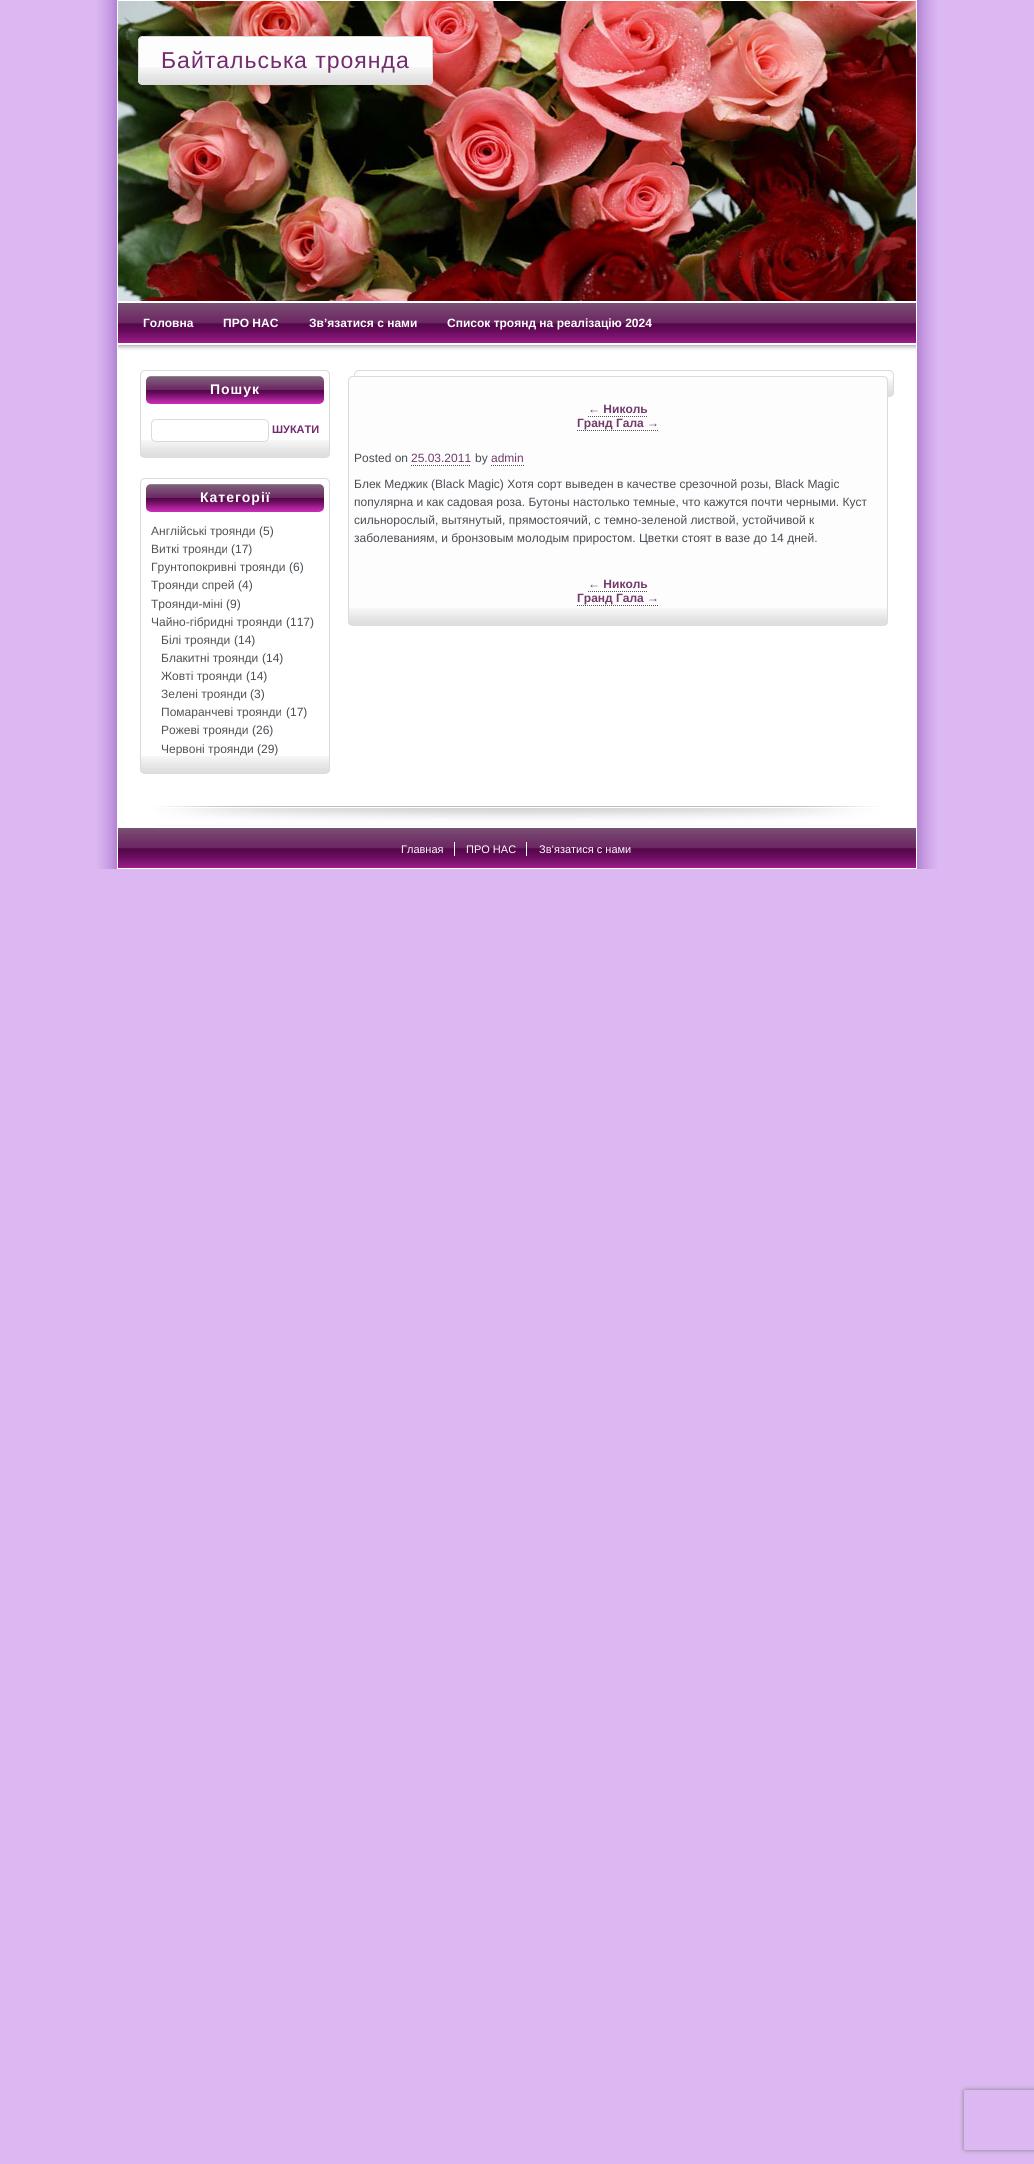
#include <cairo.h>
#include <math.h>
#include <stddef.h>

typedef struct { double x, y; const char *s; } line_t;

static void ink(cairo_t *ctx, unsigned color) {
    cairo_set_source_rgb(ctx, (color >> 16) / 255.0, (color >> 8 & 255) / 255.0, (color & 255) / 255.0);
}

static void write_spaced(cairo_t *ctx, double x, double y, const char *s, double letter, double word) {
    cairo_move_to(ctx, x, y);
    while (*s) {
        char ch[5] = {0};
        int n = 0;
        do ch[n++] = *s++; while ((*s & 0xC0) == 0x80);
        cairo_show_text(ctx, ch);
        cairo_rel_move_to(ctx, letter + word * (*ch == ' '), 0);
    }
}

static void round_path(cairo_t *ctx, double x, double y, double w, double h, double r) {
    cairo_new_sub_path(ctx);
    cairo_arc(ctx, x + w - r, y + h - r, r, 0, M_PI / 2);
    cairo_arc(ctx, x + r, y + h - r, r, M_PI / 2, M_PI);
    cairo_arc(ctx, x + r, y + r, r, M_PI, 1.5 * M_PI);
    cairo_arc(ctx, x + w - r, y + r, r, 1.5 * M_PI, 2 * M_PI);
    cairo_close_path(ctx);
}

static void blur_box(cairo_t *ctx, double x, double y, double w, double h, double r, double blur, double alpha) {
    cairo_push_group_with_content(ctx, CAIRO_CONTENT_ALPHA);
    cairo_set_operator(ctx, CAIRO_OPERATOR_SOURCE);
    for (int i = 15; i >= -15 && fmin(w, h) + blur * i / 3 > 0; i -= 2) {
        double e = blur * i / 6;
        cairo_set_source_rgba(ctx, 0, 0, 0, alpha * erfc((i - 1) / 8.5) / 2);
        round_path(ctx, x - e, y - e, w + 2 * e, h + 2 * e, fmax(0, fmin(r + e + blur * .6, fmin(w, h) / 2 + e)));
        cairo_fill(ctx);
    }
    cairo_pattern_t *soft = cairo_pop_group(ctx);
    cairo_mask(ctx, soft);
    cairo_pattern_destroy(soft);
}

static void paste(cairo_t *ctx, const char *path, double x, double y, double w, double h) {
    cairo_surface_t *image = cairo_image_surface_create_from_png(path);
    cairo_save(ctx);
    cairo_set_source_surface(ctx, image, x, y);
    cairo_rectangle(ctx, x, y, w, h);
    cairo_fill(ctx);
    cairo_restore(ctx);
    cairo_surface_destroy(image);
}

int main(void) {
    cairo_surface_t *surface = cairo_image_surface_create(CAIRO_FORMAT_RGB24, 1034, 2164);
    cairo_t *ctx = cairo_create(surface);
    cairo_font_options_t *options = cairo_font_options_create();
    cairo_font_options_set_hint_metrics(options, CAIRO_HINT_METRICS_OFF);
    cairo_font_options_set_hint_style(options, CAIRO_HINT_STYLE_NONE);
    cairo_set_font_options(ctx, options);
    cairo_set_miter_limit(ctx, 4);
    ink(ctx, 0xDCB8F2);
    cairo_paint(ctx);
    paste(ctx, "media/1.png", 97, 0, 840, 869);
    paste(ctx, "media/2.png", 118, 1, 798, 300);
    ink(ctx, 0xFDFDFD);
    round_path(ctx, 138, 36, 295, 49, 5);
    cairo_fill(ctx);
    paste(ctx, "media/3.png", 138, 67, 295, 17);
    round_path(ctx, 138.5, 36.5, 294, 48, 4.5);
    ink(ctx, 0xDBDBDB);
    cairo_set_line_width(ctx, 1);
    cairo_stroke(ctx);
    cairo_select_font_face(ctx, "Liberation Sans", CAIRO_FONT_SLANT_NORMAL, CAIRO_FONT_WEIGHT_NORMAL);
    cairo_set_font_size(ctx, 23);
    ink(ctx, 0x742B6F);
    write_spaced(ctx, 161, 68, "Байтальська троянда", 1, 0);
    paste(ctx, "media/4.png", 118, 303, 798, 40);
    cairo_select_font_face(ctx, "Liberation Sans", CAIRO_FONT_SLANT_NORMAL, CAIRO_FONT_WEIGHT_BOLD);
    cairo_set_font_size(ctx, 12);
    ink(ctx, 0xFFFFFF);
    {
        static const line_t items[] = {
            {143, 327, "Головна"},
            {223, 327, "ПРО НАС"},
            {309, 327, "Зв’язатися с нами"},
            {447, 327, "Список троянд на реалізацію 2024"},
        };
        for (size_t i = 0; i < sizeof items / sizeof *items; i++) {
            cairo_move_to(ctx, items[i].x, items[i].y);
            cairo_show_text(ctx, items[i].s);
        }
    }
    paste(ctx, "media/5.png", 118, 345, 798, 9);
    paste(ctx, "media/6.png", 140, 440, 190, 17);
    round_path(ctx, 140.5, 370.5, 189, 87, 4.5);
    ink(ctx, 0xDBDBDB);
    cairo_stroke(ctx);
    paste(ctx, "media/7.png", 146, 376, 178, 28);
    cairo_set_font_size(ctx, 14);
    ink(ctx, 0xFFFFFF);
    write_spaced(ctx, 210, 394, "Пошук", 1, 0);
    round_path(ctx, 151.5, 419.5, 117, 22, 4.5);
    cairo_fill_preserve(ctx);
    ink(ctx, 0xDBDBDB);
    cairo_stroke(ctx);
    cairo_set_font_size(ctx, 11);
    ink(ctx, 0x742B6F);
    cairo_move_to(ctx, 272, 433);
    cairo_show_text(ctx, "ШУКАТИ");
    paste(ctx, "media/6.png", 140, 756, 190, 17);
    round_path(ctx, 140.5, 478.5, 189, 295, 4.5);
    ink(ctx, 0xDBDBDB);
    cairo_stroke(ctx);
    paste(ctx, "media/8.png", 146, 484, 178, 28);
    cairo_set_font_size(ctx, 14);
    ink(ctx, 0xFFFFFF);
    write_spaced(ctx, 200, 502, "Категорії", 1, 0);
    cairo_select_font_face(ctx, "Liberation Sans", CAIRO_FONT_SLANT_NORMAL, CAIRO_FONT_WEIGHT_NORMAL);
    cairo_set_font_size(ctx, 12);
    ink(ctx, 0x535353);
    cairo_move_to(ctx, 151, 535);
    cairo_show_text(ctx, "Англійські троянди");
    ink(ctx, 0x484D53);
    cairo_move_to(ctx, 259, 535);
    cairo_show_text(ctx, "(5)");
    ink(ctx, 0x535353);
    cairo_move_to(ctx, 151, 553);
    cairo_show_text(ctx, "Виткі троянди");
    ink(ctx, 0x484D53);
    cairo_move_to(ctx, 231, 553);
    cairo_show_text(ctx, "(17)");
    ink(ctx, 0x535353);
    cairo_move_to(ctx, 151, 571);
    cairo_show_text(ctx, "Грунтопокривні троянди");
    ink(ctx, 0x484D53);
    cairo_move_to(ctx, 289, 571);
    cairo_show_text(ctx, "(6)");
    ink(ctx, 0x535353);
    cairo_move_to(ctx, 151, 589);
    cairo_show_text(ctx, "Троянди спрей");
    ink(ctx, 0x484D53);
    cairo_move_to(ctx, 238, 589);
    cairo_show_text(ctx, "(4)");
    ink(ctx, 0x535353);
    cairo_move_to(ctx, 151, 608);
    cairo_show_text(ctx, "Троянди-міні");
    ink(ctx, 0x484D53);
    cairo_move_to(ctx, 226, 608);
    cairo_show_text(ctx, "(9)");
    ink(ctx, 0x535353);
    cairo_move_to(ctx, 151, 626);
    cairo_show_text(ctx, "Чайно-гібридні троянди");
    ink(ctx, 0x484D53);
    cairo_move_to(ctx, 286, 626);
    cairo_show_text(ctx, "(117)");
    ink(ctx, 0x535353);
    cairo_move_to(ctx, 161, 644);
    cairo_show_text(ctx, "Білі троянди");
    ink(ctx, 0x484D53);
    cairo_move_to(ctx, 234, 644);
    cairo_show_text(ctx, "(14)");
    ink(ctx, 0x535353);
    cairo_move_to(ctx, 161, 662);
    cairo_show_text(ctx, "Блакитні троянди");
    ink(ctx, 0x484D53);
    cairo_move_to(ctx, 262, 662);
    cairo_show_text(ctx, "(14)");
    ink(ctx, 0x535353);
    cairo_move_to(ctx, 161, 680);
    cairo_show_text(ctx, "Жовті троянди");
    ink(ctx, 0x484D53);
    cairo_move_to(ctx, 246, 680);
    cairo_show_text(ctx, "(14)");
    ink(ctx, 0x535353);
    cairo_move_to(ctx, 161, 698);
    cairo_show_text(ctx, "Зелені троянди");
    ink(ctx, 0x484D53);
    cairo_move_to(ctx, 250, 698);
    cairo_show_text(ctx, "(3)");
    ink(ctx, 0x535353);
    cairo_move_to(ctx, 161, 716);
    cairo_show_text(ctx, "Помаранчеві троянди");
    ink(ctx, 0x484D53);
    cairo_move_to(ctx, 286, 716);
    cairo_show_text(ctx, "(17)");
    ink(ctx, 0x535353);
    cairo_move_to(ctx, 161, 734);
    cairo_show_text(ctx, "Рожеві троянди");
    ink(ctx, 0x484D53);
    cairo_move_to(ctx, 252, 734);
    cairo_show_text(ctx, "(26)");
    ink(ctx, 0x535353);
    cairo_move_to(ctx, 161, 753);
    cairo_show_text(ctx, "Червоні троянди");
    ink(ctx, 0x484D53);
    cairo_move_to(ctx, 257, 753);
    cairo_show_text(ctx, "(29)");
    paste(ctx, "media/9.png", 887, 379, 7, 17);
    round_path(ctx, 354.5, 370.5, 539, 26, 4.5);
    ink(ctx, 0xDBDBDB);
    cairo_stroke(ctx);
    ink(ctx, 0xFDFDFD);
    round_path(ctx, 348, 376, 540, 250, 5);
    cairo_fill(ctx);
    paste(ctx, "media/10.png", 348, 608, 540, 17);
    round_path(ctx, 348.5, 376.5, 539, 249, 4.5);
    ink(ctx, 0xDBDBDB);
    cairo_stroke(ctx);
    cairo_select_font_face(ctx, "Liberation Sans", CAIRO_FONT_SLANT_NORMAL, CAIRO_FONT_WEIGHT_BOLD);
    ink(ctx, 0x723A6B);
    cairo_move_to(ctx, 588, 413);
    cairo_show_text(ctx, "← Николь");
    cairo_new_path(ctx);
    cairo_move_to(ctx, 588, 416.5);
    cairo_line_to(ctx, 600, 416.5);
    cairo_move_to(ctx, 600, 416.5);
    cairo_line_to(ctx, 648, 416.5);
    ink(ctx, 0x515151);
    cairo_set_dash(ctx, (double[]){1, 1}, 2, 0);
    cairo_stroke(ctx);
    ink(ctx, 0x723A6B);
    cairo_move_to(ctx, 577, 427);
    cairo_show_text(ctx, "Гранд Гала →");
    cairo_new_path(ctx);
    cairo_move_to(ctx, 577, 430.5);
    cairo_line_to(ctx, 647, 430.5);
    ink(ctx, 0x515151);
    cairo_stroke(ctx);
    cairo_new_path(ctx);
    cairo_move_to(ctx, 647, 430.5);
    cairo_line_to(ctx, 659, 430.5);
    cairo_stroke(ctx);
    cairo_select_font_face(ctx, "Liberation Sans", CAIRO_FONT_SLANT_NORMAL, CAIRO_FONT_WEIGHT_NORMAL);
    ink(ctx, 0x484D53);
    cairo_move_to(ctx, 354, 462);
    cairo_show_text(ctx, "Posted on");
    ink(ctx, 0x723A6B);
    cairo_move_to(ctx, 411, 462);
    cairo_show_text(ctx, "25.03.2011");
    cairo_new_path(ctx);
    cairo_move_to(ctx, 411, 465.5);
    cairo_line_to(ctx, 471, 465.5);
    ink(ctx, 0x515151);
    cairo_stroke(ctx);
    ink(ctx, 0x484D53);
    cairo_move_to(ctx, 475, 462);
    cairo_show_text(ctx, "by");
    ink(ctx, 0x723A6B);
    cairo_move_to(ctx, 491, 462);
    cairo_show_text(ctx, "admin");
    cairo_new_path(ctx);
    cairo_move_to(ctx, 491, 465.5);
    cairo_line_to(ctx, 524, 465.5);
    ink(ctx, 0x515151);
    cairo_stroke(ctx);
    ink(ctx, 0x484D53);
    {
        static const line_t items[] = {
            {354, 488, "Блек Меджик (Black Magic) Хотя сорт выведен в качестве срезочной розы, Black Magic"},
            {354, 506, "популярна и как садовая роза. Бутоны настолько темные, что кажутся почти черными. Куст"},
            {354, 524, "сильнорослый, вытянутый, прямостоячий, с темно-зеленой листвой, устойчивой к"},
            {354, 542, "заболеваниям, и бронзовым молодым приростом. Цветки стоят в вазе до 14 дней."},
        };
        for (size_t i = 0; i < sizeof items / sizeof *items; i++) {
            cairo_move_to(ctx, items[i].x, items[i].y);
            cairo_show_text(ctx, items[i].s);
        }
    }
    cairo_select_font_face(ctx, "Liberation Sans", CAIRO_FONT_SLANT_NORMAL, CAIRO_FONT_WEIGHT_BOLD);
    ink(ctx, 0x723A6B);
    cairo_move_to(ctx, 588, 588);
    cairo_show_text(ctx, "← Николь");
    cairo_new_path(ctx);
    cairo_move_to(ctx, 588, 591.5);
    cairo_line_to(ctx, 600, 591.5);
    cairo_move_to(ctx, 600, 591.5);
    cairo_line_to(ctx, 648, 591.5);
    ink(ctx, 0x515151);
    cairo_stroke(ctx);
    ink(ctx, 0x723A6B);
    cairo_move_to(ctx, 577, 602);
    cairo_show_text(ctx, "Гранд Гала →");
    cairo_new_path(ctx);
    cairo_move_to(ctx, 577, 605.5);
    cairo_line_to(ctx, 647, 605.5);
    ink(ctx, 0x515151);
    cairo_stroke(ctx);
    cairo_new_path(ctx);
    cairo_move_to(ctx, 647, 605.5);
    cairo_line_to(ctx, 659, 605.5);
    cairo_stroke(ctx);
    paste(ctx, "media/11.png", 155, 806, 725, 20);
    paste(ctx, "media/4.png", 118, 828, 798, 40);
    cairo_select_font_face(ctx, "Liberation Sans", CAIRO_FONT_SLANT_NORMAL, CAIRO_FONT_WEIGHT_NORMAL);
    cairo_set_font_size(ctx, 11);
    ink(ctx, 0xFFFFFF);
    cairo_move_to(ctx, 401, 853);
    cairo_show_text(ctx, "Главная");
    cairo_rectangle(ctx, 454, 842, 1, 14);
    cairo_fill(ctx);
    cairo_move_to(ctx, 466, 853);
    cairo_show_text(ctx, "ПРО НАС");
    cairo_rectangle(ctx, 526, 842, 1, 14);
    cairo_fill(ctx);
    cairo_move_to(ctx, 539, 853);
    cairo_show_text(ctx, "Зв’язатися с нами");
    cairo_save(ctx);
    cairo_set_fill_rule(ctx, CAIRO_FILL_RULE_EVEN_ODD);
    cairo_new_path(ctx);
    cairo_move_to(ctx, 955, 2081);
    cairo_line_to(ctx, 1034, 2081);
    cairo_line_to(ctx, 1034, 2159);
    cairo_line_to(ctx, 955, 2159);
    cairo_close_path(ctx);
    cairo_move_to(ctx, 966, 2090);
    cairo_line_to(ctx, 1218, 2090);
    cairo_curve_to(ctx, 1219, 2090, 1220, 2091, 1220, 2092);
    cairo_line_to(ctx, 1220, 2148);
    cairo_curve_to(ctx, 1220, 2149, 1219, 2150, 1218, 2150);
    cairo_line_to(ctx, 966, 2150);
    cairo_curve_to(ctx, 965, 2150, 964, 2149, 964, 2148);
    cairo_line_to(ctx, 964, 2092);
    cairo_curve_to(ctx, 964, 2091, 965, 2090, 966, 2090);
    cairo_close_path(ctx);
    cairo_clip(ctx);
    ink(ctx, 0x808080);
    blur_box(ctx, 964, 2090, 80, 60, 2, 2.5, 1);
    cairo_restore(ctx);
    cairo_surface_write_to_png(surface, "image.png");
    cairo_font_options_destroy(options);
    cairo_destroy(ctx);
    cairo_surface_destroy(surface);
    return 0;
}
